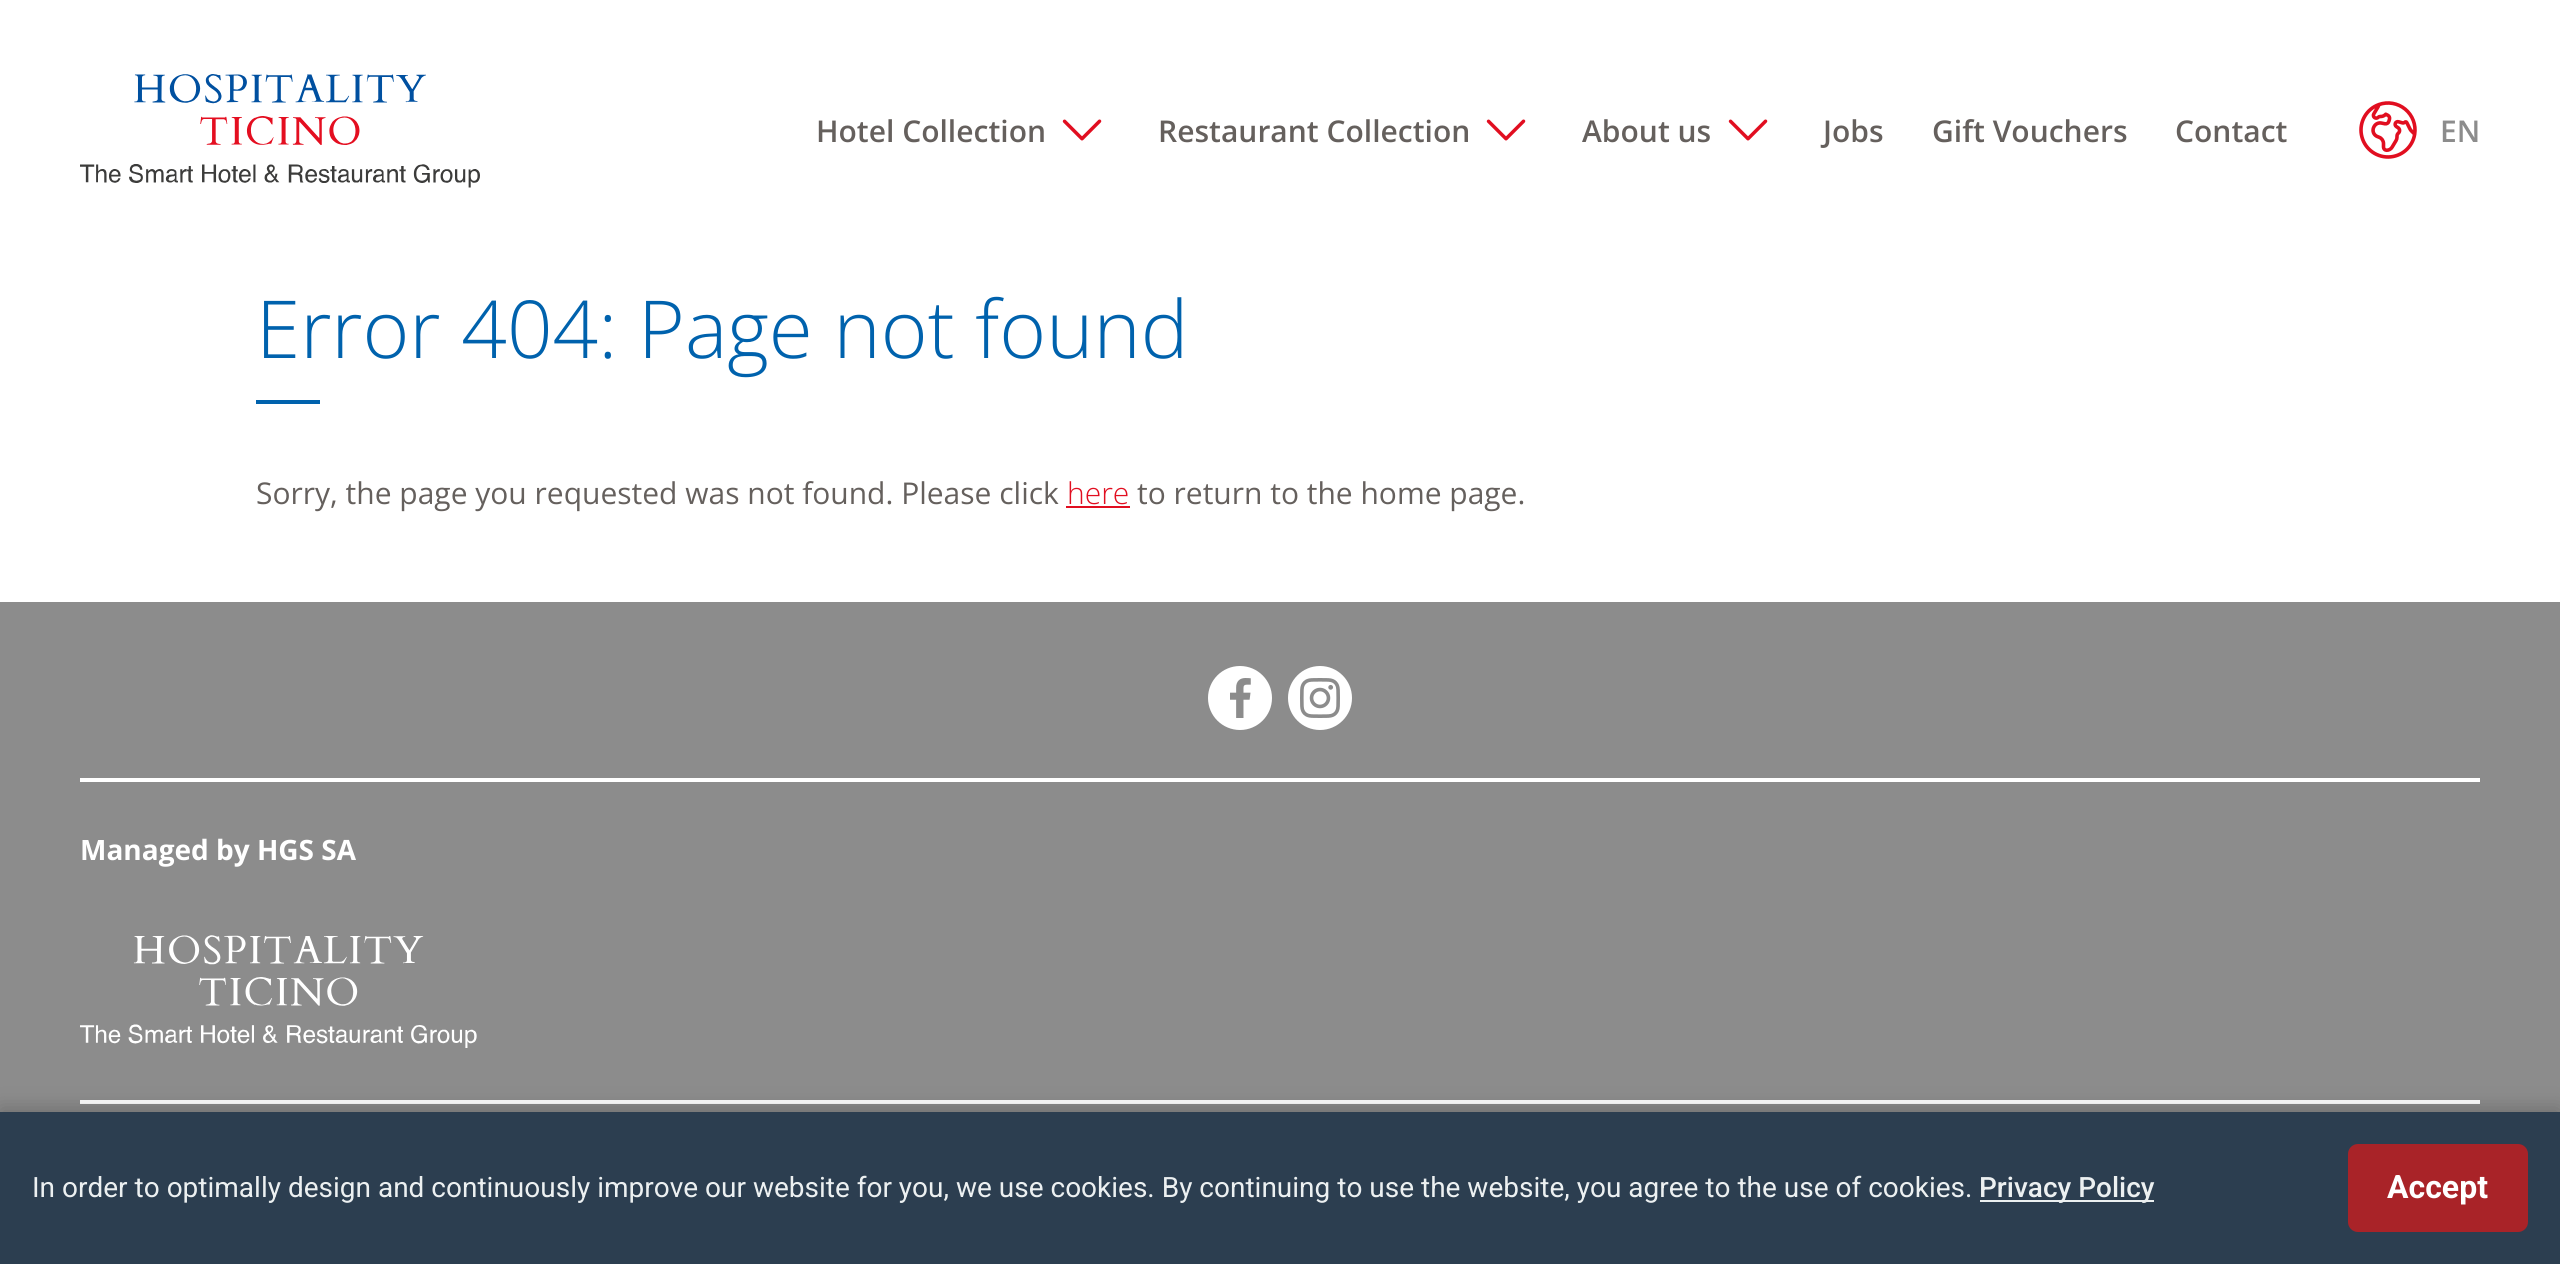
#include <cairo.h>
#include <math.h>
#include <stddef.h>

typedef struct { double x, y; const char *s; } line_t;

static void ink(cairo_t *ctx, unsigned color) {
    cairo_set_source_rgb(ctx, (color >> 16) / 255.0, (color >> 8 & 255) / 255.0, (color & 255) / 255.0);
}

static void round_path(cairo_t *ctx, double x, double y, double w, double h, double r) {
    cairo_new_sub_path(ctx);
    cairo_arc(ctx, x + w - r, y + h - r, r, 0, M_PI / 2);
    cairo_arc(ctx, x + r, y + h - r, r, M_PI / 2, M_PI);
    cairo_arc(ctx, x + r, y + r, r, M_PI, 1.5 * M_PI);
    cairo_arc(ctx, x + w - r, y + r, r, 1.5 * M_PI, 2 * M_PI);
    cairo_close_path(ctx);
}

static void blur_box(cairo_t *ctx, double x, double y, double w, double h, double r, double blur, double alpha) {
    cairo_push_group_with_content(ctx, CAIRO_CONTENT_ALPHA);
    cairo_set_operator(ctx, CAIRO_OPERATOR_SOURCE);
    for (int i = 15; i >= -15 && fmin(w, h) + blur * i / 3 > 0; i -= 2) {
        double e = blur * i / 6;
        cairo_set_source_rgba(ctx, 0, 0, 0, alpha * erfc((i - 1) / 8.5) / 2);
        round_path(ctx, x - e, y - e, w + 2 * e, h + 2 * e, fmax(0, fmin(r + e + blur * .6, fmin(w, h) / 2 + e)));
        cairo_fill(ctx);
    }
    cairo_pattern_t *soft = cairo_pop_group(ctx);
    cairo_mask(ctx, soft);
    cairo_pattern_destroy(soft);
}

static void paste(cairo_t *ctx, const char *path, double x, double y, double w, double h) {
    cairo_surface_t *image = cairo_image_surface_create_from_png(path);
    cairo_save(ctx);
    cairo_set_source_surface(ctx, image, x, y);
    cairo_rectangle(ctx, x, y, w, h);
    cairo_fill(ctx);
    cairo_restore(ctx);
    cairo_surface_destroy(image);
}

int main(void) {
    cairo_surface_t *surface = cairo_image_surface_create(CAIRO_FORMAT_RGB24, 2560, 1264);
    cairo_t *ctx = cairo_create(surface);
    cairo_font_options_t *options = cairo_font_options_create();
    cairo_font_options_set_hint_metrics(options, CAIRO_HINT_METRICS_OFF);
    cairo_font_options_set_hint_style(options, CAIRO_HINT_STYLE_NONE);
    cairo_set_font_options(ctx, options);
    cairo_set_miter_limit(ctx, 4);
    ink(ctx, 0xFFFFFF);
    cairo_paint(ctx);
    paste(ctx, "media/1.png", 80, 74, 400, 114);
    cairo_select_font_face(ctx, "Open Sans SemiBold", CAIRO_FONT_SLANT_NORMAL, CAIRO_FONT_WEIGHT_NORMAL);
    cairo_set_font_size(ctx, 30);
    ink(ctx, 0x65605D);
    cairo_move_to(ctx, 816, 142);
    cairo_show_text(ctx, "Hotel Collection");
    paste(ctx, "media/2.png", 1062, 119, 40, 22);
    cairo_move_to(ctx, 1158, 142);
    cairo_show_text(ctx, "Restaurant Collection");
    paste(ctx, "media/2.png", 1486, 119, 40, 22);
    cairo_move_to(ctx, 1582, 142);
    cairo_show_text(ctx, "About us");
    paste(ctx, "media/2.png", 1728, 119, 40, 22);
    {
        static const line_t items[] = {
            {1823, 142, "Jobs"},
            {1932, 142, "Gift Vouchers"},
            {2175, 142, "Contact"},
        };
        for (size_t i = 0; i < sizeof items / sizeof *items; i++) {
            cairo_move_to(ctx, items[i].x, items[i].y);
            cairo_show_text(ctx, items[i].s);
        }
    }
    paste(ctx, "media/3.png", 2359, 101, 58, 58);
    ink(ctx, 0x8C8C8C);
    cairo_move_to(ctx, 2440, 142);
    cairo_show_text(ctx, "EN");
    cairo_select_font_face(ctx, "Open Sans Light", CAIRO_FONT_SLANT_NORMAL, CAIRO_FONT_WEIGHT_NORMAL);
    cairo_set_font_size(ctx, 80);
    ink(ctx, 0x0062AD);
    cairo_move_to(ctx, 256, 358);
    cairo_show_text(ctx, "Error 404: Page not found");
    cairo_rectangle(ctx, 256, 400, 64, 4);
    cairo_fill(ctx);
    cairo_select_font_face(ctx, "Open Sans", CAIRO_FONT_SLANT_NORMAL, CAIRO_FONT_WEIGHT_NORMAL);
    cairo_set_font_size(ctx, 30);
    ink(ctx, 0x65605D);
    cairo_move_to(ctx, 256, 504);
    cairo_show_text(ctx, "Sorry, the page you requested was not found. Please click");
    cairo_select_font_face(ctx, "Open Sans Light", CAIRO_FONT_SLANT_NORMAL, CAIRO_FONT_WEIGHT_NORMAL);
    ink(ctx, 0xE10E20);
    cairo_move_to(ctx, 1067, 504);
    cairo_show_text(ctx, "here");
    cairo_rectangle(ctx, 1066, 506, 64, 2);
    cairo_fill(ctx);
    cairo_select_font_face(ctx, "Open Sans", CAIRO_FONT_SLANT_NORMAL, CAIRO_FONT_WEIGHT_NORMAL);
    ink(ctx, 0x65605D);
    cairo_move_to(ctx, 1137, 504);
    cairo_show_text(ctx, "to return to the home page.");
    ink(ctx, 0x8C8C8C);
    cairo_rectangle(ctx, 0, 602, 2560, 510);
    cairo_fill(ctx);
    ink(ctx, 0xFFFFFF);
    cairo_arc(ctx, 1240, 698, 32, 0, 2 * M_PI);
    cairo_fill(ctx);
    paste(ctx, "media/4.png", 1230, 678, 21, 40);
    cairo_arc(ctx, 1320, 698, 32, 0, 2 * M_PI);
    cairo_fill(ctx);
    paste(ctx, "media/5.png", 1300, 678, 40, 40);
    cairo_rectangle(ctx, 80, 778, 2400, 4);
    cairo_fill(ctx);
    cairo_select_font_face(ctx, "Open Sans", CAIRO_FONT_SLANT_NORMAL, CAIRO_FONT_WEIGHT_BOLD);
    cairo_set_font_size(ctx, 28);
    cairo_move_to(ctx, 80, 860);
    cairo_show_text(ctx, "Managed by HGS SA");
    paste(ctx, "media/6.png", 80, 935, 397, 113);
    cairo_rectangle(ctx, 80, 1100, 2400, 4);
    cairo_fill(ctx);
    ink(ctx, 0x000000);
    blur_box(ctx, 0, 1108, 2560, 152, 0, 10, 0.2);
    ink(ctx, 0x2C3E50);
    cairo_rectangle(ctx, 0, 1112, 2560, 152);
    cairo_fill(ctx);
    cairo_select_font_face(ctx, "Roboto", CAIRO_FONT_SLANT_NORMAL, CAIRO_FONT_WEIGHT_NORMAL);
    ink(ctx, 0xECF0F1);
    cairo_move_to(ctx, 32, 1197);
    cairo_show_text(ctx, "In order to optimally design and continuously improve our website for you, we use cookies. By continuing to use the website, you agree to the use of cookies.");
    cairo_rectangle(ctx, 1980, 1200, 174, 2);
    cairo_fill(ctx);
    cairo_select_font_face(ctx, "Roboto Medium", CAIRO_FONT_SLANT_NORMAL, CAIRO_FONT_WEIGHT_NORMAL);
    cairo_move_to(ctx, 1979, 1197);
    cairo_show_text(ctx, "Privacy Policy");
    ink(ctx, 0xA92328);
    round_path(ctx, 2348, 1144, 180, 88, 10);
    cairo_fill(ctx);
    cairo_select_font_face(ctx, "Roboto", CAIRO_FONT_SLANT_NORMAL, CAIRO_FONT_WEIGHT_BOLD);
    cairo_set_font_size(ctx, 32);
    ink(ctx, 0xFFFFFF);
    cairo_move_to(ctx, 2387, 1198);
    cairo_show_text(ctx, "Accept");
    cairo_surface_write_to_png(surface, "image.png");
    cairo_font_options_destroy(options);
    cairo_destroy(ctx);
    cairo_surface_destroy(surface);
    return 0;
}
